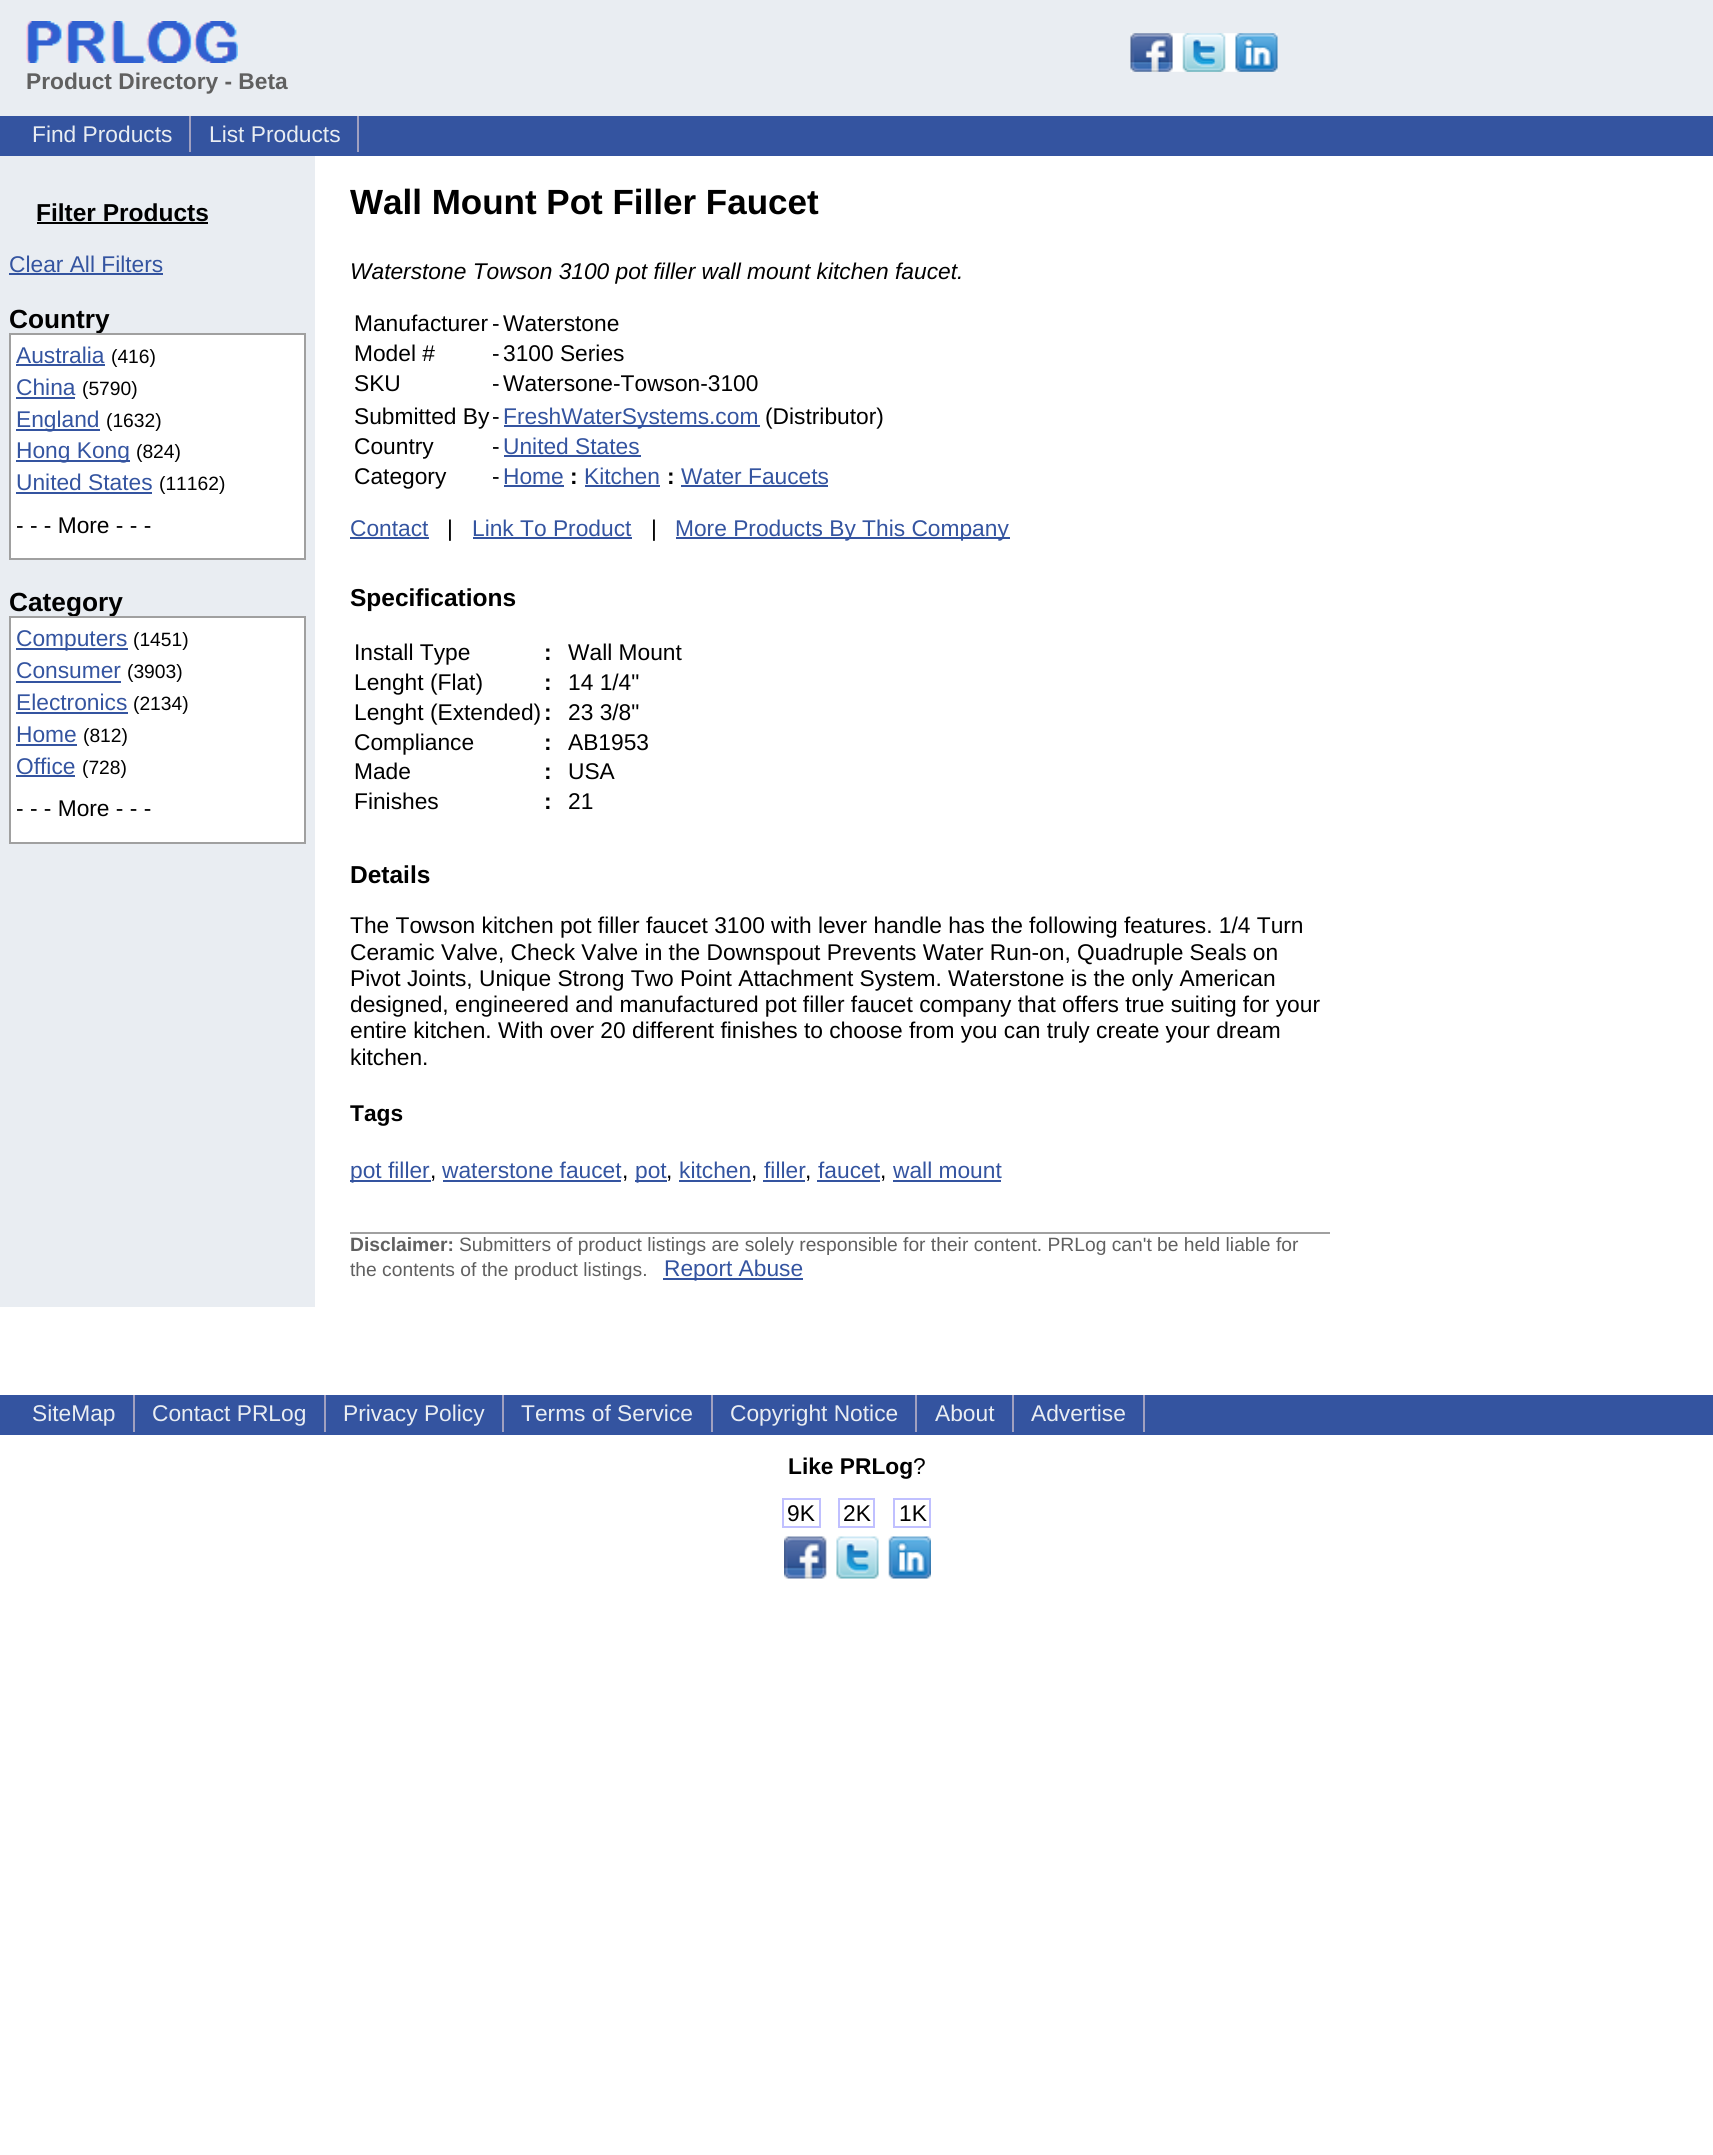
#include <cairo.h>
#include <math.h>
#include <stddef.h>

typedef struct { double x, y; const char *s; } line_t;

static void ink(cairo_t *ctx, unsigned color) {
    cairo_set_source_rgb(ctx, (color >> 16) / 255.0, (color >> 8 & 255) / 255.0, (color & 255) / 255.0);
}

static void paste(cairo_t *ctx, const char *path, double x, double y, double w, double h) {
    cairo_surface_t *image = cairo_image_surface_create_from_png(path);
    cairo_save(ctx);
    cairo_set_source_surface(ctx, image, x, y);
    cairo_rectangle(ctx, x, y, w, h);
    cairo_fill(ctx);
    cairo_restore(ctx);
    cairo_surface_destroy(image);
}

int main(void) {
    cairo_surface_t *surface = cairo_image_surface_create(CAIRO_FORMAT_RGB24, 1713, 2155);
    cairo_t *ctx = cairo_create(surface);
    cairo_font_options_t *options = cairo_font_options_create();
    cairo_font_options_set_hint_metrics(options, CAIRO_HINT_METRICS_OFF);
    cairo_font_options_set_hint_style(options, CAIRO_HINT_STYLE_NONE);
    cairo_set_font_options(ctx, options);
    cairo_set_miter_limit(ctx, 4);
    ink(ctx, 0xFFFFFF);
    cairo_paint(ctx);
    ink(ctx, 0xE9EDF2);
    cairo_rectangle(ctx, 0, 0, 1713, 116);
    cairo_fill(ctx);
    paste(ctx, "media/1.png", 1130, 33, 148, 39);
    paste(ctx, "media/2.png", 26, 21, 212, 42);
    cairo_select_font_face(ctx, "Liberation Sans", CAIRO_FONT_SLANT_NORMAL, CAIRO_FONT_WEIGHT_BOLD);
    cairo_set_font_size(ctx, 22.75);
    ink(ctx, 0x606060);
    cairo_move_to(ctx, 26, 89);
    cairo_show_text(ctx, "Product Directory - Beta");
    ink(ctx, 0x3454A0);
    cairo_rectangle(ctx, 0, 116, 1713, 40);
    cairo_fill(ctx);
    ink(ctx, 0xA0A0C0);
    cairo_rectangle(ctx, 189, 116, 2, 36);
    cairo_fill(ctx);
    cairo_select_font_face(ctx, "Liberation Sans", CAIRO_FONT_SLANT_NORMAL, CAIRO_FONT_WEIGHT_NORMAL);
    ink(ctx, 0xE9EDF2);
    cairo_move_to(ctx, 32, 142);
    cairo_show_text(ctx, "Find Products");
    ink(ctx, 0xA0A0C0);
    cairo_rectangle(ctx, 357, 116, 2, 36);
    cairo_fill(ctx);
    ink(ctx, 0xE9EDF2);
    cairo_move_to(ctx, 209, 142);
    cairo_show_text(ctx, "List Products");
    cairo_rectangle(ctx, 0, 156, 315, 1151);
    cairo_fill(ctx);
    cairo_select_font_face(ctx, "Liberation Sans", CAIRO_FONT_SLANT_NORMAL, CAIRO_FONT_WEIGHT_BOLD);
    cairo_set_font_size(ctx, 24.5);
    ink(ctx, 0x000000);
    cairo_move_to(ctx, 36, 221);
    cairo_show_text(ctx, "Filter Products");
    cairo_rectangle(ctx, 37, 222, 171, 2);
    cairo_fill(ctx);
    cairo_select_font_face(ctx, "Liberation Sans", CAIRO_FONT_SLANT_NORMAL, CAIRO_FONT_WEIGHT_NORMAL);
    cairo_set_font_size(ctx, 22.75);
    ink(ctx, 0x3454A0);
    cairo_move_to(ctx, 9, 272);
    cairo_show_text(ctx, "Clear All Filters");
    cairo_rectangle(ctx, 9, 273, 154, 2);
    cairo_fill(ctx);
    cairo_select_font_face(ctx, "Liberation Sans", CAIRO_FONT_SLANT_NORMAL, CAIRO_FONT_WEIGHT_BOLD);
    cairo_set_font_size(ctx, 26.25);
    ink(ctx, 0x000000);
    cairo_move_to(ctx, 9, 328);
    cairo_show_text(ctx, "Country");
    ink(ctx, 0xFFFFFF);
    cairo_rectangle(ctx, 10, 334, 295, 225);
    cairo_fill_preserve(ctx);
    ink(ctx, 0xA0A0A0);
    cairo_stroke(ctx);
    cairo_select_font_face(ctx, "Liberation Sans", CAIRO_FONT_SLANT_NORMAL, CAIRO_FONT_WEIGHT_NORMAL);
    cairo_set_font_size(ctx, 22.75);
    ink(ctx, 0x3454A0);
    cairo_move_to(ctx, 16, 363);
    cairo_show_text(ctx, "Australia");
    cairo_rectangle(ctx, 16, 364, 89, 2);
    cairo_fill(ctx);
    cairo_set_font_size(ctx, 19.25);
    ink(ctx, 0x000000);
    cairo_move_to(ctx, 111, 363);
    cairo_show_text(ctx, "(416)");
    cairo_set_font_size(ctx, 22.75);
    ink(ctx, 0x3454A0);
    cairo_move_to(ctx, 16, 395);
    cairo_show_text(ctx, "China");
    cairo_rectangle(ctx, 16, 397, 59, 2);
    cairo_fill(ctx);
    cairo_set_font_size(ctx, 19.25);
    ink(ctx, 0x000000);
    cairo_move_to(ctx, 82, 395);
    cairo_show_text(ctx, "(5790)");
    ink(ctx, 0x3454A0);
    cairo_rectangle(ctx, 16, 429, 84, 2);
    cairo_fill(ctx);
    cairo_set_font_size(ctx, 22.75);
    cairo_move_to(ctx, 16, 427);
    cairo_show_text(ctx, "England");
    cairo_set_font_size(ctx, 19.25);
    ink(ctx, 0x000000);
    cairo_move_to(ctx, 106, 427);
    cairo_show_text(ctx, "(1632)");
    ink(ctx, 0x3454A0);
    cairo_rectangle(ctx, 16, 460, 114, 2);
    cairo_fill(ctx);
    cairo_set_font_size(ctx, 22.75);
    cairo_move_to(ctx, 16, 458);
    cairo_show_text(ctx, "Hong Kong");
    cairo_set_font_size(ctx, 19.25);
    ink(ctx, 0x000000);
    cairo_move_to(ctx, 136, 458);
    cairo_show_text(ctx, "(824)");
    cairo_set_font_size(ctx, 22.75);
    ink(ctx, 0x3454A0);
    cairo_move_to(ctx, 16, 490);
    cairo_show_text(ctx, "United States");
    cairo_rectangle(ctx, 16, 492, 136, 2);
    cairo_fill(ctx);
    cairo_set_font_size(ctx, 19.25);
    ink(ctx, 0x000000);
    cairo_move_to(ctx, 159, 490);
    cairo_show_text(ctx, "(11162)");
    cairo_set_font_size(ctx, 22.75);
    cairo_move_to(ctx, 16, 533);
    cairo_show_text(ctx, "- - - More - - -");
    cairo_select_font_face(ctx, "Liberation Sans", CAIRO_FONT_SLANT_NORMAL, CAIRO_FONT_WEIGHT_BOLD);
    cairo_set_font_size(ctx, 26.25);
    cairo_move_to(ctx, 9, 611);
    cairo_show_text(ctx, "Category");
    ink(ctx, 0xFFFFFF);
    cairo_rectangle(ctx, 10, 617, 295, 226);
    cairo_fill_preserve(ctx);
    ink(ctx, 0xA0A0A0);
    cairo_stroke(ctx);
    ink(ctx, 0x3454A0);
    cairo_rectangle(ctx, 16, 648, 112, 2);
    cairo_fill(ctx);
    cairo_select_font_face(ctx, "Liberation Sans", CAIRO_FONT_SLANT_NORMAL, CAIRO_FONT_WEIGHT_NORMAL);
    cairo_set_font_size(ctx, 22.75);
    cairo_move_to(ctx, 16, 646);
    cairo_show_text(ctx, "Computers");
    cairo_set_font_size(ctx, 19.25);
    ink(ctx, 0x000000);
    cairo_move_to(ctx, 133, 646);
    cairo_show_text(ctx, "(1451)");
    cairo_set_font_size(ctx, 22.75);
    ink(ctx, 0x3454A0);
    cairo_move_to(ctx, 16, 678);
    cairo_show_text(ctx, "Consumer");
    cairo_rectangle(ctx, 16, 681, 105, 2);
    cairo_fill(ctx);
    cairo_set_font_size(ctx, 19.25);
    ink(ctx, 0x000000);
    cairo_move_to(ctx, 127, 678);
    cairo_show_text(ctx, "(3903)");
    cairo_set_font_size(ctx, 22.75);
    ink(ctx, 0x3454A0);
    cairo_move_to(ctx, 16, 710);
    cairo_show_text(ctx, "Electronics");
    cairo_rectangle(ctx, 16, 712, 112, 2);
    cairo_fill(ctx);
    cairo_set_font_size(ctx, 19.25);
    ink(ctx, 0x000000);
    cairo_move_to(ctx, 133, 710);
    cairo_show_text(ctx, "(2134)");
    cairo_set_font_size(ctx, 22.75);
    ink(ctx, 0x3454A0);
    cairo_move_to(ctx, 16, 742);
    cairo_show_text(ctx, "Home");
    cairo_rectangle(ctx, 16, 744, 61, 2);
    cairo_fill(ctx);
    cairo_set_font_size(ctx, 19.25);
    ink(ctx, 0x000000);
    cairo_move_to(ctx, 83, 742);
    cairo_show_text(ctx, "(812)");
    cairo_set_font_size(ctx, 22.75);
    ink(ctx, 0x3454A0);
    cairo_move_to(ctx, 16, 774);
    cairo_show_text(ctx, "Office");
    cairo_rectangle(ctx, 16, 775, 59, 2);
    cairo_fill(ctx);
    cairo_set_font_size(ctx, 19.25);
    ink(ctx, 0x000000);
    cairo_move_to(ctx, 82, 774);
    cairo_show_text(ctx, "(728)");
    cairo_set_font_size(ctx, 22.75);
    cairo_move_to(ctx, 16, 816);
    cairo_show_text(ctx, "- - - More - - -");
    cairo_select_font_face(ctx, "Liberation Sans", CAIRO_FONT_SLANT_NORMAL, CAIRO_FONT_WEIGHT_BOLD);
    cairo_set_font_size(ctx, 35);
    cairo_move_to(ctx, 350, 214);
    cairo_show_text(ctx, "Wall Mount Pot Filler Faucet");
    cairo_select_font_face(ctx, "Liberation Sans", CAIRO_FONT_SLANT_ITALIC, CAIRO_FONT_WEIGHT_NORMAL);
    cairo_set_font_size(ctx, 22.75);
    cairo_move_to(ctx, 350, 279);
    cairo_show_text(ctx, "Waterstone Towson 3100 pot filler wall mount kitchen faucet.");
    cairo_select_font_face(ctx, "Liberation Sans", CAIRO_FONT_SLANT_NORMAL, CAIRO_FONT_WEIGHT_NORMAL);
    {
        static const line_t items[] = {
            {354, 331, "Manufacturer"},
            {492, 331, "-"},
            {503, 331, "Waterstone"},
            {354, 361, "Model #"},
            {492, 361, "-"},
            {503, 361, "3100 Series"},
            {354, 391, "SKU"},
            {492, 391, "-"},
            {503, 391, "Watersone-Towson-3100"},
            {354, 424, "Submitted By"},
            {492, 424, "-"},
        };
        for (size_t i = 0; i < sizeof items / sizeof *items; i++) {
            cairo_move_to(ctx, items[i].x, items[i].y);
            cairo_show_text(ctx, items[i].s);
        }
    }
    ink(ctx, 0x3454A0);
    cairo_rectangle(ctx, 504, 425, 256, 2);
    cairo_fill(ctx);
    cairo_move_to(ctx, 503, 424);
    cairo_show_text(ctx, "FreshWaterSystems.com");
    ink(ctx, 0x000000);
    {
        static const line_t items[] = {
            {765, 424, "(Distributor)"},
            {354, 454, "Country"},
            {492, 454, "-"},
        };
        for (size_t i = 0; i < sizeof items / sizeof *items; i++) {
            cairo_move_to(ctx, items[i].x, items[i].y);
            cairo_show_text(ctx, items[i].s);
        }
    }
    ink(ctx, 0x3454A0);
    cairo_move_to(ctx, 503, 454);
    cairo_show_text(ctx, "United States");
    cairo_rectangle(ctx, 504, 455, 137, 2);
    cairo_fill(ctx);
    ink(ctx, 0x000000);
    cairo_move_to(ctx, 354, 484);
    cairo_show_text(ctx, "Category");
    cairo_move_to(ctx, 492, 484);
    cairo_show_text(ctx, "-");
    ink(ctx, 0x3454A0);
    cairo_move_to(ctx, 503, 484);
    cairo_show_text(ctx, "Home");
    cairo_rectangle(ctx, 504, 485, 60, 2);
    cairo_fill(ctx);
    cairo_select_font_face(ctx, "Liberation Sans", CAIRO_FONT_SLANT_NORMAL, CAIRO_FONT_WEIGHT_BOLD);
    ink(ctx, 0x000000);
    cairo_move_to(ctx, 570, 484);
    cairo_show_text(ctx, ":");
    cairo_select_font_face(ctx, "Liberation Sans", CAIRO_FONT_SLANT_NORMAL, CAIRO_FONT_WEIGHT_NORMAL);
    ink(ctx, 0x3454A0);
    cairo_move_to(ctx, 584, 484);
    cairo_show_text(ctx, "Kitchen");
    cairo_rectangle(ctx, 585, 485, 75, 2);
    cairo_fill(ctx);
    cairo_select_font_face(ctx, "Liberation Sans", CAIRO_FONT_SLANT_NORMAL, CAIRO_FONT_WEIGHT_BOLD);
    ink(ctx, 0x000000);
    cairo_move_to(ctx, 667, 484);
    cairo_show_text(ctx, ":");
    cairo_select_font_face(ctx, "Liberation Sans", CAIRO_FONT_SLANT_NORMAL, CAIRO_FONT_WEIGHT_NORMAL);
    ink(ctx, 0x3454A0);
    cairo_move_to(ctx, 681, 484);
    cairo_show_text(ctx, "Water Faucets");
    cairo_rectangle(ctx, 681, 485, 147, 2);
    cairo_fill(ctx);
    cairo_move_to(ctx, 350, 536);
    cairo_show_text(ctx, "Contact");
    cairo_rectangle(ctx, 350, 537, 79, 2);
    cairo_fill(ctx);
    ink(ctx, 0x000000);
    cairo_move_to(ctx, 447, 536);
    cairo_show_text(ctx, "|");
    ink(ctx, 0x3454A0);
    cairo_move_to(ctx, 472, 536);
    cairo_show_text(ctx, "Link To Product");
    cairo_rectangle(ctx, 473, 537, 159, 2);
    cairo_fill(ctx);
    ink(ctx, 0x000000);
    cairo_move_to(ctx, 651, 536);
    cairo_show_text(ctx, "|");
    ink(ctx, 0x3454A0);
    cairo_rectangle(ctx, 676, 537, 334, 2);
    cairo_fill(ctx);
    cairo_move_to(ctx, 675, 536);
    cairo_show_text(ctx, "More Products By This Company");
    cairo_select_font_face(ctx, "Liberation Sans", CAIRO_FONT_SLANT_NORMAL, CAIRO_FONT_WEIGHT_BOLD);
    cairo_set_font_size(ctx, 24.5);
    ink(ctx, 0x000000);
    cairo_move_to(ctx, 350, 606);
    cairo_show_text(ctx, "Specifications");
    cairo_select_font_face(ctx, "Liberation Sans", CAIRO_FONT_SLANT_NORMAL, CAIRO_FONT_WEIGHT_NORMAL);
    cairo_set_font_size(ctx, 22.75);
    cairo_move_to(ctx, 354, 660);
    cairo_show_text(ctx, "Install Type");
    cairo_select_font_face(ctx, "Liberation Sans", CAIRO_FONT_SLANT_NORMAL, CAIRO_FONT_WEIGHT_BOLD);
    cairo_move_to(ctx, 544, 660);
    cairo_show_text(ctx, ":");
    cairo_select_font_face(ctx, "Liberation Sans", CAIRO_FONT_SLANT_NORMAL, CAIRO_FONT_WEIGHT_NORMAL);
    cairo_move_to(ctx, 568, 660);
    cairo_show_text(ctx, "Wall Mount");
    cairo_move_to(ctx, 354, 690);
    cairo_show_text(ctx, "Lenght (Flat)");
    cairo_select_font_face(ctx, "Liberation Sans", CAIRO_FONT_SLANT_NORMAL, CAIRO_FONT_WEIGHT_BOLD);
    cairo_move_to(ctx, 544, 690);
    cairo_show_text(ctx, ":");
    cairo_select_font_face(ctx, "Liberation Sans", CAIRO_FONT_SLANT_NORMAL, CAIRO_FONT_WEIGHT_NORMAL);
    cairo_move_to(ctx, 568, 690);
    cairo_show_text(ctx, "14 1/4\"");
    cairo_move_to(ctx, 354, 720);
    cairo_show_text(ctx, "Lenght (Extended)");
    cairo_select_font_face(ctx, "Liberation Sans", CAIRO_FONT_SLANT_NORMAL, CAIRO_FONT_WEIGHT_BOLD);
    cairo_move_to(ctx, 544, 720);
    cairo_show_text(ctx, ":");
    cairo_select_font_face(ctx, "Liberation Sans", CAIRO_FONT_SLANT_NORMAL, CAIRO_FONT_WEIGHT_NORMAL);
    cairo_move_to(ctx, 568, 720);
    cairo_show_text(ctx, "23 3/8\"");
    cairo_move_to(ctx, 354, 750);
    cairo_show_text(ctx, "Compliance");
    cairo_select_font_face(ctx, "Liberation Sans", CAIRO_FONT_SLANT_NORMAL, CAIRO_FONT_WEIGHT_BOLD);
    cairo_move_to(ctx, 544, 750);
    cairo_show_text(ctx, ":");
    cairo_select_font_face(ctx, "Liberation Sans", CAIRO_FONT_SLANT_NORMAL, CAIRO_FONT_WEIGHT_NORMAL);
    cairo_move_to(ctx, 568, 750);
    cairo_show_text(ctx, "AB1953");
    cairo_move_to(ctx, 354, 779);
    cairo_show_text(ctx, "Made");
    cairo_select_font_face(ctx, "Liberation Sans", CAIRO_FONT_SLANT_NORMAL, CAIRO_FONT_WEIGHT_BOLD);
    cairo_move_to(ctx, 544, 779);
    cairo_show_text(ctx, ":");
    cairo_select_font_face(ctx, "Liberation Sans", CAIRO_FONT_SLANT_NORMAL, CAIRO_FONT_WEIGHT_NORMAL);
    cairo_move_to(ctx, 568, 779);
    cairo_show_text(ctx, "USA");
    cairo_move_to(ctx, 354, 809);
    cairo_show_text(ctx, "Finishes");
    cairo_select_font_face(ctx, "Liberation Sans", CAIRO_FONT_SLANT_NORMAL, CAIRO_FONT_WEIGHT_BOLD);
    cairo_move_to(ctx, 544, 809);
    cairo_show_text(ctx, ":");
    cairo_select_font_face(ctx, "Liberation Sans", CAIRO_FONT_SLANT_NORMAL, CAIRO_FONT_WEIGHT_NORMAL);
    cairo_move_to(ctx, 568, 809);
    cairo_show_text(ctx, "21");
    cairo_select_font_face(ctx, "Liberation Sans", CAIRO_FONT_SLANT_NORMAL, CAIRO_FONT_WEIGHT_BOLD);
    cairo_set_font_size(ctx, 24.5);
    cairo_move_to(ctx, 350, 883);
    cairo_show_text(ctx, "Details");
    cairo_select_font_face(ctx, "Liberation Sans", CAIRO_FONT_SLANT_NORMAL, CAIRO_FONT_WEIGHT_NORMAL);
    cairo_set_font_size(ctx, 22.75);
    {
        static const line_t items[] = {
            {350, 933, "The Towson kitchen pot filler faucet 3100 with lever handle has the following features. 1/4 Turn"},
            {350, 960, "Ceramic Valve, Check Valve in the Downspout Prevents Water Run-on, Quadruple Seals on"},
            {350, 986, "Pivot Joints, Unique Strong Two Point Attachment System. Waterstone is the only American"},
            {350, 1012, "designed, engineered and manufactured pot filler faucet company that offers true suiting for your"},
            {350, 1038, "entire kitchen. With over 20 different finishes to choose from you can truly create your dream"},
            {350, 1065, "kitchen."},
        };
        for (size_t i = 0; i < sizeof items / sizeof *items; i++) {
            cairo_move_to(ctx, items[i].x, items[i].y);
            cairo_show_text(ctx, items[i].s);
        }
    }
    cairo_select_font_face(ctx, "Liberation Sans", CAIRO_FONT_SLANT_NORMAL, CAIRO_FONT_WEIGHT_BOLD);
    cairo_move_to(ctx, 350, 1121);
    cairo_show_text(ctx, "Tags");
    ink(ctx, 0x3454A0);
    cairo_rectangle(ctx, 350, 1180, 81, 2);
    cairo_fill(ctx);
    cairo_select_font_face(ctx, "Liberation Sans", CAIRO_FONT_SLANT_NORMAL, CAIRO_FONT_WEIGHT_NORMAL);
    cairo_move_to(ctx, 350, 1178);
    cairo_show_text(ctx, "pot filler");
    ink(ctx, 0x000000);
    cairo_move_to(ctx, 430, 1178);
    cairo_show_text(ctx, ",");
    ink(ctx, 0x3454A0);
    cairo_move_to(ctx, 442, 1178);
    cairo_show_text(ctx, "waterstone faucet");
    cairo_rectangle(ctx, 443, 1180, 178, 2);
    cairo_fill(ctx);
    ink(ctx, 0x000000);
    cairo_move_to(ctx, 622, 1178);
    cairo_show_text(ctx, ",");
    ink(ctx, 0x3454A0);
    cairo_rectangle(ctx, 635, 1180, 32, 2);
    cairo_fill(ctx);
    cairo_move_to(ctx, 635, 1178);
    cairo_show_text(ctx, "pot");
    ink(ctx, 0x000000);
    cairo_move_to(ctx, 666, 1178);
    cairo_show_text(ctx, ",");
    ink(ctx, 0x3454A0);
    cairo_move_to(ctx, 679, 1178);
    cairo_show_text(ctx, "kitchen");
    cairo_rectangle(ctx, 679, 1180, 72, 2);
    cairo_fill(ctx);
    ink(ctx, 0x000000);
    cairo_move_to(ctx, 751, 1178);
    cairo_show_text(ctx, ",");
    ink(ctx, 0x3454A0);
    cairo_move_to(ctx, 764, 1178);
    cairo_show_text(ctx, "filler");
    cairo_rectangle(ctx, 763, 1180, 42, 2);
    cairo_fill(ctx);
    ink(ctx, 0x000000);
    cairo_move_to(ctx, 805, 1178);
    cairo_show_text(ctx, ",");
    ink(ctx, 0x3454A0);
    cairo_move_to(ctx, 818, 1178);
    cairo_show_text(ctx, "faucet");
    cairo_rectangle(ctx, 817, 1180, 63, 2);
    cairo_fill(ctx);
    ink(ctx, 0x000000);
    cairo_move_to(ctx, 880, 1178);
    cairo_show_text(ctx, ",");
    ink(ctx, 0x3454A0);
    cairo_move_to(ctx, 893, 1178);
    cairo_show_text(ctx, "wall mount");
    cairo_rectangle(ctx, 893, 1180, 108, 2);
    cairo_fill(ctx);
    ink(ctx, 0xA0A0A0);
    cairo_rectangle(ctx, 350, 1232, 980, 2);
    cairo_fill(ctx);
    cairo_select_font_face(ctx, "Liberation Sans", CAIRO_FONT_SLANT_NORMAL, CAIRO_FONT_WEIGHT_BOLD);
    cairo_set_font_size(ctx, 19.25);
    ink(ctx, 0x606060);
    cairo_move_to(ctx, 350, 1251);
    cairo_show_text(ctx, "Disclaimer:");
    cairo_select_font_face(ctx, "Liberation Sans", CAIRO_FONT_SLANT_NORMAL, CAIRO_FONT_WEIGHT_NORMAL);
    cairo_move_to(ctx, 459, 1251);
    cairo_show_text(ctx, "Submitters of product listings are solely responsible for their content. PRLog can't be held liable for");
    cairo_move_to(ctx, 350, 1276);
    cairo_show_text(ctx, "the contents of the product listings.");
    ink(ctx, 0x3454A0);
    cairo_rectangle(ctx, 663, 1278, 140, 2);
    cairo_fill(ctx);
    cairo_set_font_size(ctx, 22.75);
    cairo_move_to(ctx, 664, 1276);
    cairo_show_text(ctx, "Report Abuse");
    cairo_rectangle(ctx, 0, 1395, 1713, 40);
    cairo_fill(ctx);
    ink(ctx, 0xA0A0C0);
    cairo_rectangle(ctx, 133, 1395, 2, 37);
    cairo_fill(ctx);
    ink(ctx, 0xE9EDF2);
    cairo_move_to(ctx, 32, 1421);
    cairo_show_text(ctx, "SiteMap");
    ink(ctx, 0xA0A0C0);
    cairo_rectangle(ctx, 324, 1395, 2, 37);
    cairo_fill(ctx);
    ink(ctx, 0xE9EDF2);
    cairo_move_to(ctx, 152, 1421);
    cairo_show_text(ctx, "Contact PRLog");
    ink(ctx, 0xA0A0C0);
    cairo_rectangle(ctx, 502, 1395, 2, 37);
    cairo_fill(ctx);
    ink(ctx, 0xE9EDF2);
    cairo_move_to(ctx, 343, 1421);
    cairo_show_text(ctx, "Privacy Policy");
    ink(ctx, 0xA0A0C0);
    cairo_rectangle(ctx, 711, 1395, 2, 37);
    cairo_fill(ctx);
    ink(ctx, 0xE9EDF2);
    cairo_move_to(ctx, 521, 1421);
    cairo_show_text(ctx, "Terms of Service");
    ink(ctx, 0xA0A0C0);
    cairo_rectangle(ctx, 915, 1395, 2, 37);
    cairo_fill(ctx);
    ink(ctx, 0xE9EDF2);
    cairo_move_to(ctx, 730, 1421);
    cairo_show_text(ctx, "Copyright Notice");
    ink(ctx, 0xA0A0C0);
    cairo_rectangle(ctx, 1012, 1395, 2, 37);
    cairo_fill(ctx);
    ink(ctx, 0xE9EDF2);
    cairo_move_to(ctx, 935, 1421);
    cairo_show_text(ctx, "About");
    ink(ctx, 0xA0A0C0);
    cairo_rectangle(ctx, 1143, 1395, 2, 37);
    cairo_fill(ctx);
    ink(ctx, 0xE9EDF2);
    cairo_move_to(ctx, 1031, 1421);
    cairo_show_text(ctx, "Advertise");
    cairo_select_font_face(ctx, "Liberation Sans", CAIRO_FONT_SLANT_NORMAL, CAIRO_FONT_WEIGHT_BOLD);
    ink(ctx, 0x000000);
    cairo_move_to(ctx, 788, 1474);
    cairo_show_text(ctx, "Like PRLog");
    cairo_select_font_face(ctx, "Liberation Sans", CAIRO_FONT_SLANT_NORMAL, CAIRO_FONT_WEIGHT_NORMAL);
    cairo_move_to(ctx, 913, 1474);
    cairo_show_text(ctx, "?");
    cairo_rectangle(ctx, 783, 1499, 37, 28);
    ink(ctx, 0xC0C0FF);
    cairo_stroke(ctx);
    ink(ctx, 0x000000);
    cairo_move_to(ctx, 787, 1521);
    cairo_show_text(ctx, "9K");
    cairo_rectangle(ctx, 839, 1499, 35, 28);
    ink(ctx, 0xC0C0FF);
    cairo_stroke(ctx);
    ink(ctx, 0x000000);
    cairo_move_to(ctx, 843, 1521);
    cairo_show_text(ctx, "2K");
    cairo_rectangle(ctx, 894, 1499, 36, 28);
    ink(ctx, 0xC0C0FF);
    cairo_stroke(ctx);
    ink(ctx, 0x000000);
    cairo_move_to(ctx, 899, 1521);
    cairo_show_text(ctx, "1K");
    paste(ctx, "media/3.png", 784, 1536, 147, 43);
    cairo_surface_write_to_png(surface, "image.png");
    cairo_font_options_destroy(options);
    cairo_destroy(ctx);
    cairo_surface_destroy(surface);
    return 0;
}
